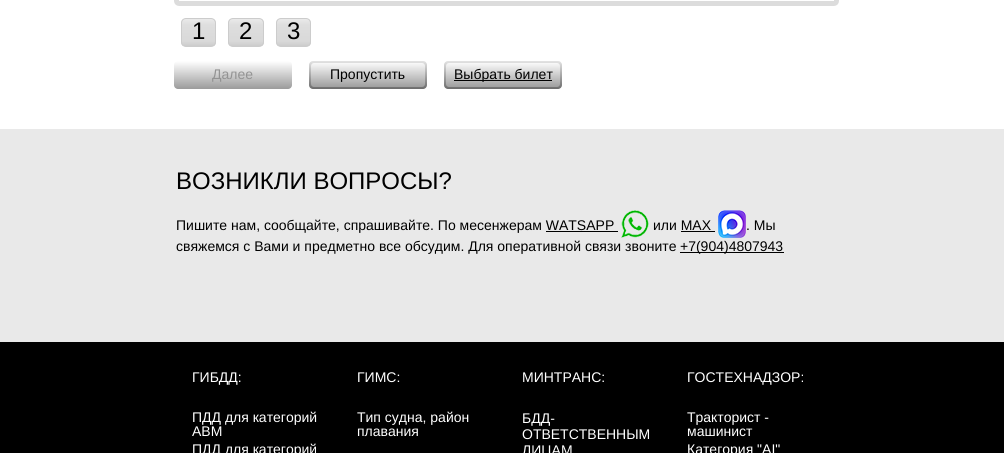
#include <cairo.h>
#include <math.h>
#include <stddef.h>

typedef struct { double x, y; const char *s; } line_t;

static void ink(cairo_t *ctx, unsigned color) {
    cairo_set_source_rgb(ctx, (color >> 16) / 255.0, (color >> 8 & 255) / 255.0, (color & 255) / 255.0);
}

static void round_path(cairo_t *ctx, double x, double y, double w, double h, double r) {
    cairo_new_sub_path(ctx);
    cairo_arc(ctx, x + w - r, y + h - r, r, 0, M_PI / 2);
    cairo_arc(ctx, x + r, y + h - r, r, M_PI / 2, M_PI);
    cairo_arc(ctx, x + r, y + r, r, M_PI, 1.5 * M_PI);
    cairo_arc(ctx, x + w - r, y + r, r, 1.5 * M_PI, 2 * M_PI);
    cairo_close_path(ctx);
}

static void paste(cairo_t *ctx, const char *path, double x, double y, double w, double h) {
    cairo_surface_t *image = cairo_image_surface_create_from_png(path);
    cairo_save(ctx);
    cairo_set_source_surface(ctx, image, x, y);
    cairo_rectangle(ctx, x, y, w, h);
    cairo_fill(ctx);
    cairo_restore(ctx);
    cairo_surface_destroy(image);
}

int main(void) {
    cairo_surface_t *surface = cairo_image_surface_create(CAIRO_FORMAT_RGB24, 1004, 453);
    cairo_t *ctx = cairo_create(surface);
    cairo_font_options_t *options = cairo_font_options_create();
    cairo_font_options_set_hint_metrics(options, CAIRO_HINT_METRICS_OFF);
    cairo_font_options_set_hint_style(options, CAIRO_HINT_STYLE_NONE);
    cairo_set_font_options(ctx, options);
    cairo_set_miter_limit(ctx, 4);
    cairo_pattern_t *gradient;
    ink(ctx, 0xFFFFFF);
    cairo_paint(ctx);
    round_path(ctx, 176.5, -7.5, 660, 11, 2.5);
    ink(ctx, 0xDCDCDC);
    cairo_set_line_width(ctx, 5);
    cairo_stroke(ctx);
    cairo_save(ctx);
    round_path(ctx, 181, 18, 35, 29, 5);
    cairo_clip(ctx);
    gradient = cairo_pattern_create_linear(199, 19, 199, 46);
    cairo_pattern_add_color_stop_rgba(gradient, 0, 0.918, 0.918, 0.918, 1);
    cairo_pattern_add_color_stop_rgba(gradient, 0.23, 0.871, 0.871, 0.871, 1);
    cairo_pattern_add_color_stop_rgba(gradient, 0.82, 0.851, 0.851, 0.851, 1);
    cairo_pattern_add_color_stop_rgba(gradient, 1, 0.8, 0.8, 0.8, 1);
    cairo_set_source(ctx, gradient);
    cairo_pattern_destroy(gradient);
    cairo_rectangle(ctx, 181, 19, 35, 27);
    cairo_fill(ctx);
    cairo_restore(ctx);
    round_path(ctx, 181.5, 18.5, 34, 28, 4.5);
    ink(ctx, 0xCCCCCC);
    cairo_set_line_width(ctx, 1);
    cairo_stroke(ctx);
    cairo_select_font_face(ctx, "Liberation Sans", CAIRO_FONT_SLANT_NORMAL, CAIRO_FONT_WEIGHT_NORMAL);
    cairo_set_font_size(ctx, 24);
    ink(ctx, 0x000000);
    cairo_move_to(ctx, 192, 39);
    cairo_show_text(ctx, "1");
    cairo_save(ctx);
    round_path(ctx, 228, 18, 36, 29, 5);
    cairo_clip(ctx);
    gradient = cairo_pattern_create_linear(246, 19, 246, 46);
    cairo_pattern_add_color_stop_rgba(gradient, 0, 0.918, 0.918, 0.918, 1);
    cairo_pattern_add_color_stop_rgba(gradient, 0.23, 0.871, 0.871, 0.871, 1);
    cairo_pattern_add_color_stop_rgba(gradient, 0.82, 0.851, 0.851, 0.851, 1);
    cairo_pattern_add_color_stop_rgba(gradient, 1, 0.8, 0.8, 0.8, 1);
    cairo_set_source(ctx, gradient);
    cairo_pattern_destroy(gradient);
    cairo_rectangle(ctx, 228, 19, 36, 27);
    cairo_fill(ctx);
    cairo_restore(ctx);
    round_path(ctx, 228.5, 18.5, 35, 28, 4.5);
    ink(ctx, 0xCCCCCC);
    cairo_stroke(ctx);
    ink(ctx, 0x000000);
    cairo_move_to(ctx, 239, 39);
    cairo_show_text(ctx, "2");
    cairo_save(ctx);
    round_path(ctx, 276, 18, 35, 29, 5);
    cairo_clip(ctx);
    gradient = cairo_pattern_create_linear(294, 19, 294, 46);
    cairo_pattern_add_color_stop_rgba(gradient, 0, 0.918, 0.918, 0.918, 1);
    cairo_pattern_add_color_stop_rgba(gradient, 0.23, 0.871, 0.871, 0.871, 1);
    cairo_pattern_add_color_stop_rgba(gradient, 0.82, 0.851, 0.851, 0.851, 1);
    cairo_pattern_add_color_stop_rgba(gradient, 1, 0.8, 0.8, 0.8, 1);
    cairo_set_source(ctx, gradient);
    cairo_pattern_destroy(gradient);
    cairo_rectangle(ctx, 276, 19, 35, 27);
    cairo_fill(ctx);
    cairo_restore(ctx);
    round_path(ctx, 276.5, 18.5, 34, 28, 4.5);
    ink(ctx, 0xCCCCCC);
    cairo_stroke(ctx);
    ink(ctx, 0x000000);
    cairo_move_to(ctx, 287, 39);
    cairo_show_text(ctx, "3");
    gradient = cairo_pattern_create_linear(233, 61, 233, 89);
    cairo_pattern_add_color_stop_rgba(gradient, 0, 1, 1, 1, 1);
    cairo_pattern_add_color_stop_rgba(gradient, 1, 0.608, 0.608, 0.608, 1);
    cairo_set_source(ctx, gradient);
    cairo_pattern_destroy(gradient);
    round_path(ctx, 174, 61, 118, 28, 4);
    cairo_fill(ctx);
    cairo_set_font_size(ctx, 14);
    ink(ctx, 0x939393);
    cairo_move_to(ctx, 212, 79);
    cairo_show_text(ctx, "Далее");
    gradient = cairo_pattern_create_linear(368, 61, 368, 89);
    cairo_pattern_add_color_stop_rgba(gradient, 0, 0.89, 0.89, 0.89, 1);
    cairo_pattern_add_color_stop_rgba(gradient, 1, 0.427, 0.427, 0.427, 1);
    cairo_set_source(ctx, gradient);
    cairo_pattern_destroy(gradient);
    round_path(ctx, 309, 61, 118, 28, 4);
    cairo_fill(ctx);
    gradient = cairo_pattern_create_linear(368, 63, 368, 87);
    cairo_pattern_add_color_stop_rgba(gradient, 0, 0.976, 0.976, 0.976, 1);
    cairo_pattern_add_color_stop_rgba(gradient, 1, 0.624, 0.624, 0.624, 1);
    cairo_set_source(ctx, gradient);
    cairo_pattern_destroy(gradient);
    round_path(ctx, 311, 63, 114, 24, 3);
    cairo_fill(ctx);
    ink(ctx, 0x000000);
    cairo_move_to(ctx, 330, 79);
    cairo_show_text(ctx, "Пропустить");
    gradient = cairo_pattern_create_linear(503, 61, 503, 89);
    cairo_pattern_add_color_stop_rgba(gradient, 0, 0.89, 0.89, 0.89, 1);
    cairo_pattern_add_color_stop_rgba(gradient, 1, 0.427, 0.427, 0.427, 1);
    cairo_set_source(ctx, gradient);
    cairo_pattern_destroy(gradient);
    round_path(ctx, 444, 61, 118, 28, 4);
    cairo_fill(ctx);
    gradient = cairo_pattern_create_linear(503, 63, 503, 87);
    cairo_pattern_add_color_stop_rgba(gradient, 0, 0.976, 0.976, 0.976, 1);
    cairo_pattern_add_color_stop_rgba(gradient, 1, 0.624, 0.624, 0.624, 1);
    cairo_set_source(ctx, gradient);
    cairo_pattern_destroy(gradient);
    round_path(ctx, 446, 63, 114, 24, 3);
    cairo_fill(ctx);
    ink(ctx, 0x000000);
    cairo_rectangle(ctx, 454, 80, 98, 1);
    cairo_fill(ctx);
    cairo_move_to(ctx, 454, 79);
    cairo_show_text(ctx, "Выбрать билет");
    ink(ctx, 0xE9E9E9);
    cairo_rectangle(ctx, 0, 129, 1004, 213);
    cairo_fill(ctx);
    cairo_set_font_size(ctx, 24);
    ink(ctx, 0x000000);
    cairo_move_to(ctx, 176, 189);
    cairo_show_text(ctx, "ВОЗНИКЛИ ВОПРОСЫ?");
    cairo_set_font_size(ctx, 14);
    cairo_move_to(ctx, 176, 230);
    cairo_show_text(ctx, "Пишите нам, сообщайте, спрашивайте. По месенжерам WATSAPP");
    paste(ctx, "media/1.png", 621, 210, 28, 28);
    cairo_move_to(ctx, 653, 230);
    cairo_show_text(ctx, "или MAX");
    paste(ctx, "media/2.png", 718, 210, 28, 28);
    cairo_move_to(ctx, 746, 230);
    cairo_show_text(ctx, ". Мы");
    cairo_rectangle(ctx, 546, 231, 72, 1);
    cairo_fill(ctx);
    cairo_rectangle(ctx, 681, 231, 34, 1);
    cairo_fill(ctx);
    cairo_move_to(ctx, 176, 251);
    cairo_show_text(ctx, "свяжемся с Вами и предметно все обсудим. Для оперативной связи звоните");
    cairo_rectangle(ctx, 680, 252, 104, 1);
    cairo_fill(ctx);
    cairo_move_to(ctx, 680, 251);
    cairo_show_text(ctx, "+7(904)4807943");
    cairo_rectangle(ctx, 0, 342, 1004, 111);
    cairo_fill(ctx);
    ink(ctx, 0xFFFFFF);
    {
        static const line_t items[] = {
            {192, 382, "ГИБДД:"},
            {192, 422, "ПДД для категорий"},
            {192, 436, "ABM"},
            {192, 454, "ПДД для категорий"},
            {357, 382, "ГИМС:"},
            {357, 422, "Тип судна, район"},
            {357, 436, "плавания"},
            {522, 382, "МИНТРАНС:"},
            {522, 423, "БДД-"},
            {522, 439, "ОТВЕТСТВЕННЫМ"},
            {522, 455, "ЛИЦАМ"},
            {687, 382, "ГОСТЕХНАДЗОР:"},
            {687, 422, "Тракторист -"},
            {687, 436, "машинист"},
            {687, 454, "Категория \"AI\""},
        };
        for (size_t i = 0; i < sizeof items / sizeof *items; i++) {
            cairo_move_to(ctx, items[i].x, items[i].y);
            cairo_show_text(ctx, items[i].s);
        }
    }
    cairo_surface_write_to_png(surface, "image.png");
    cairo_font_options_destroy(options);
    cairo_destroy(ctx);
    cairo_surface_destroy(surface);
    return 0;
}
